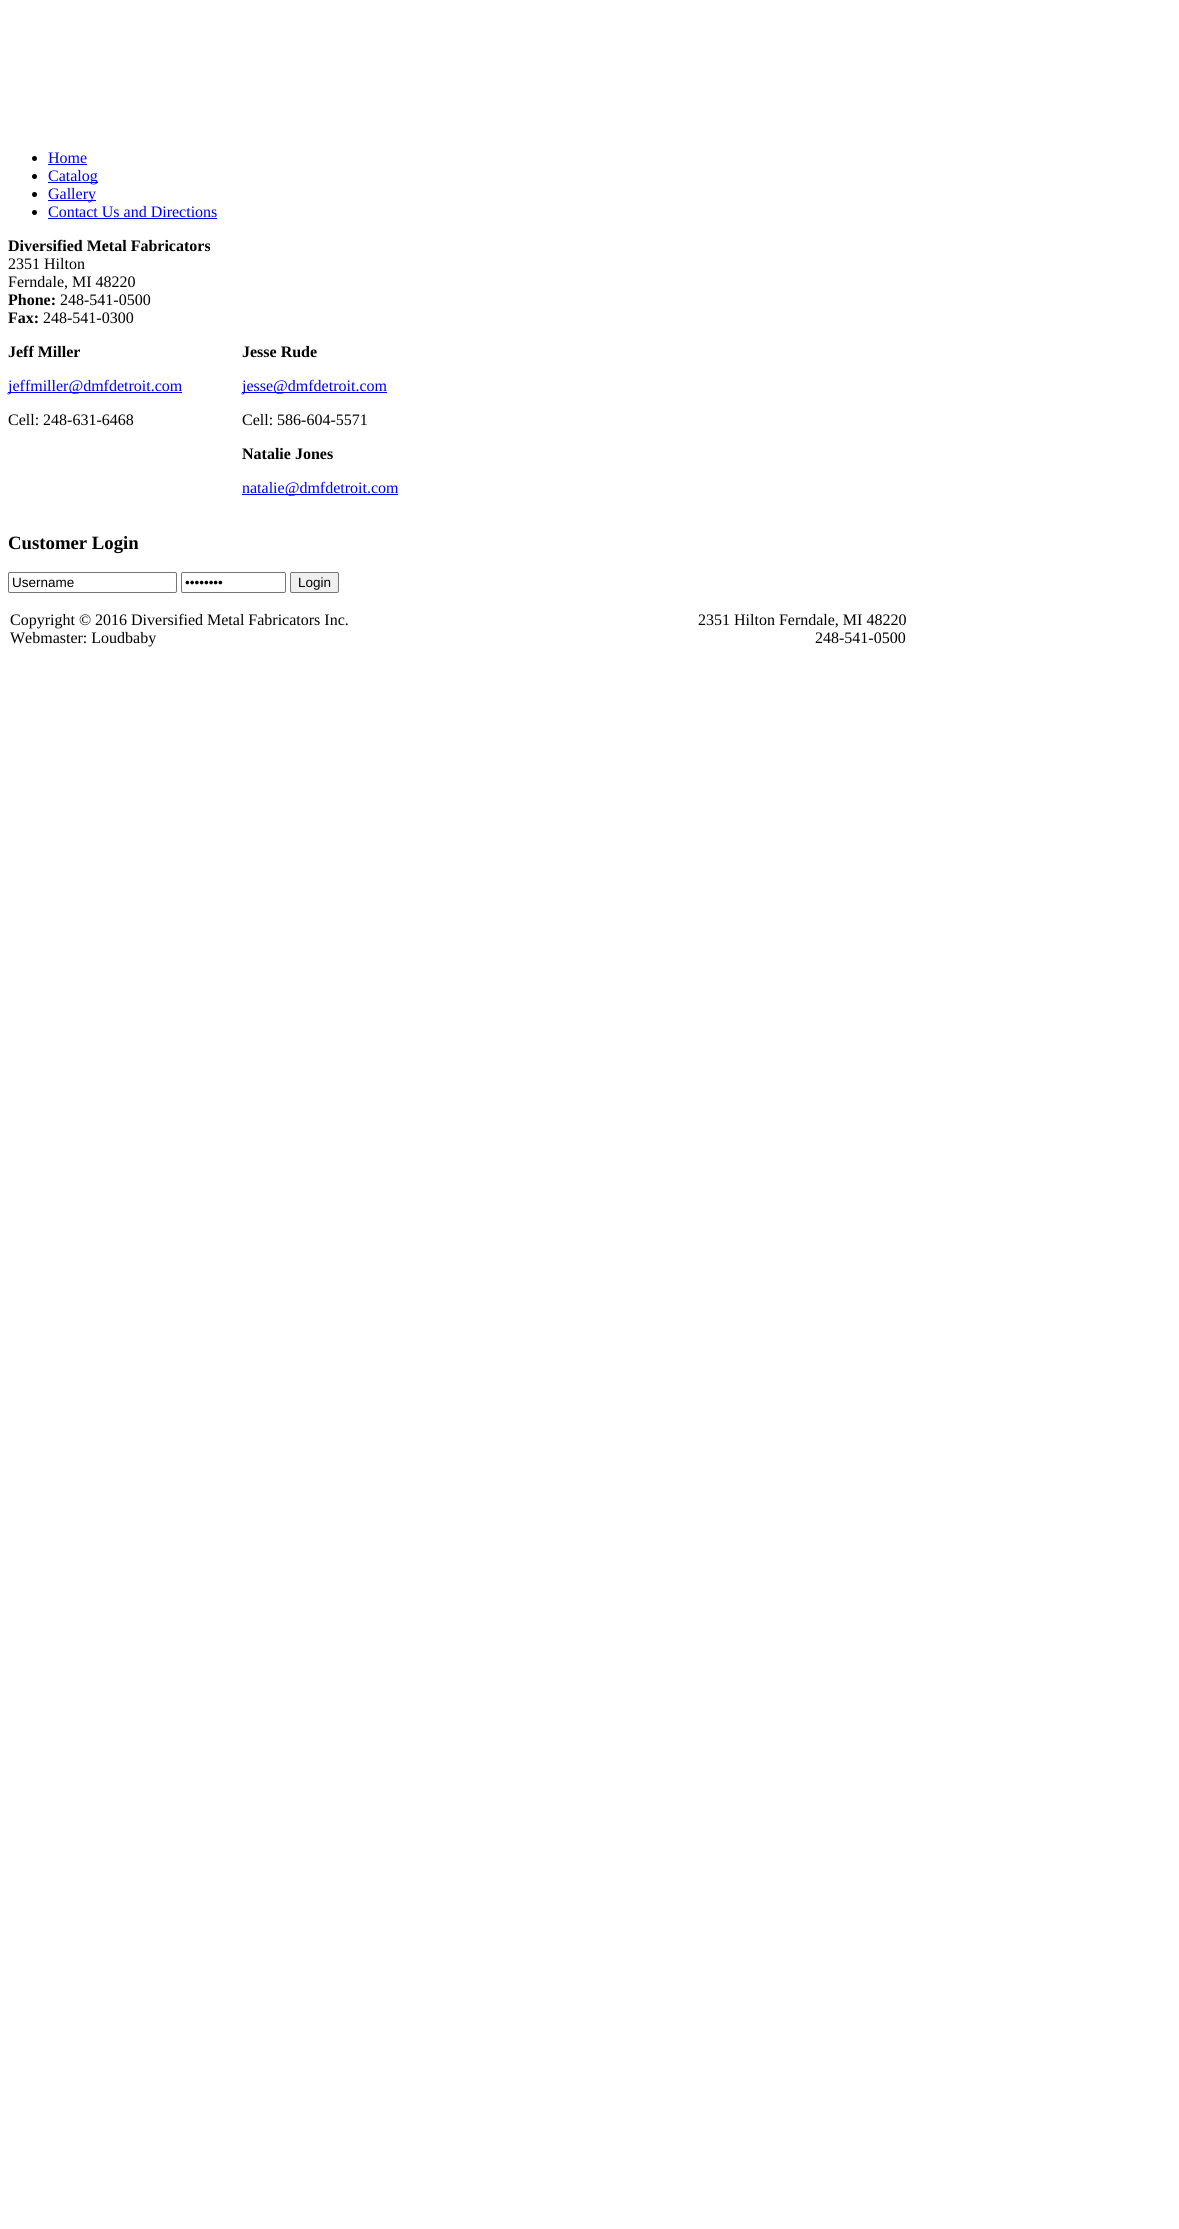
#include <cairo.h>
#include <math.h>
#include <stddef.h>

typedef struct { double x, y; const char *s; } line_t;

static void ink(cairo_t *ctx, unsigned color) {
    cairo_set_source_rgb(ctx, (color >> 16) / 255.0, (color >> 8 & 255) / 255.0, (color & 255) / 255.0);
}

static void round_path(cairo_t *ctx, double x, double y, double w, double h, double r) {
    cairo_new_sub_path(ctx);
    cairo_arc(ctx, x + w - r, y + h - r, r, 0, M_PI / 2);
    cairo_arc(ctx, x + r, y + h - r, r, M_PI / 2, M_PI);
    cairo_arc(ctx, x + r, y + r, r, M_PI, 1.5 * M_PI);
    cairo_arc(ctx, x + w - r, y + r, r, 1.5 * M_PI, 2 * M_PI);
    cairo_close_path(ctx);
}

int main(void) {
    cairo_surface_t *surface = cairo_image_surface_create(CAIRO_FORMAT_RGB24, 1179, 2229);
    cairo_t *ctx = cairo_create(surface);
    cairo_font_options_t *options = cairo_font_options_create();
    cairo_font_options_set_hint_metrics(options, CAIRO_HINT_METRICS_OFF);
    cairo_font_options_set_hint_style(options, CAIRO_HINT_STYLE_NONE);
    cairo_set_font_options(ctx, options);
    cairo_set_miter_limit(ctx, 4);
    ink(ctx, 0xFFFFFF);
    cairo_paint(ctx);
    ink(ctx, 0x000000);
    cairo_arc(ctx, 34.5, 158.5, 2.5, 0, 2 * M_PI);
    cairo_fill(ctx);
    cairo_select_font_face(ctx, "Liberation Serif", CAIRO_FONT_SLANT_NORMAL, CAIRO_FONT_WEIGHT_NORMAL);
    cairo_set_font_size(ctx, 16);
    ink(ctx, 0x0000EE);
    cairo_move_to(ctx, 48, 163);
    cairo_show_text(ctx, "Home");
    cairo_rectangle(ctx, 48, 164, 39, 1);
    cairo_fill(ctx);
    ink(ctx, 0x000000);
    cairo_arc(ctx, 34.5, 176.5, 2.5, 0, 2 * M_PI);
    cairo_fill(ctx);
    ink(ctx, 0x0000EE);
    cairo_rectangle(ctx, 48, 182, 50, 1);
    cairo_fill(ctx);
    cairo_move_to(ctx, 48, 181);
    cairo_show_text(ctx, "Catalog");
    ink(ctx, 0x000000);
    cairo_new_path(ctx);
    cairo_arc(ctx, 34.5, 194.5, 2.5, 0, 2 * M_PI);
    cairo_fill(ctx);
    ink(ctx, 0x0000EE);
    cairo_rectangle(ctx, 48, 200, 48, 1);
    cairo_fill(ctx);
    cairo_move_to(ctx, 48, 199);
    cairo_show_text(ctx, "Gallery");
    ink(ctx, 0x000000);
    cairo_new_path(ctx);
    cairo_arc(ctx, 34.5, 212.5, 2.5, 0, 2 * M_PI);
    cairo_fill(ctx);
    ink(ctx, 0x0000EE);
    cairo_move_to(ctx, 48, 217);
    cairo_show_text(ctx, "Contact Us and Directions");
    cairo_rectangle(ctx, 48, 218, 169, 1);
    cairo_fill(ctx);
    cairo_select_font_face(ctx, "Liberation Serif", CAIRO_FONT_SLANT_NORMAL, CAIRO_FONT_WEIGHT_BOLD);
    ink(ctx, 0x000000);
    cairo_move_to(ctx, 8, 251);
    cairo_show_text(ctx, "Diversified Metal Fabricators");
    cairo_select_font_face(ctx, "Liberation Serif", CAIRO_FONT_SLANT_NORMAL, CAIRO_FONT_WEIGHT_NORMAL);
    cairo_move_to(ctx, 8, 269);
    cairo_show_text(ctx, "2351 Hilton");
    cairo_move_to(ctx, 8, 287);
    cairo_show_text(ctx, "Ferndale, MI 48220");
    cairo_select_font_face(ctx, "Liberation Serif", CAIRO_FONT_SLANT_NORMAL, CAIRO_FONT_WEIGHT_BOLD);
    cairo_move_to(ctx, 8, 305);
    cairo_show_text(ctx, "Phone:");
    cairo_select_font_face(ctx, "Liberation Serif", CAIRO_FONT_SLANT_NORMAL, CAIRO_FONT_WEIGHT_NORMAL);
    cairo_move_to(ctx, 60, 305);
    cairo_show_text(ctx, "248-541-0500");
    cairo_select_font_face(ctx, "Liberation Serif", CAIRO_FONT_SLANT_NORMAL, CAIRO_FONT_WEIGHT_BOLD);
    cairo_move_to(ctx, 8, 323);
    cairo_show_text(ctx, "Fax:");
    cairo_select_font_face(ctx, "Liberation Serif", CAIRO_FONT_SLANT_NORMAL, CAIRO_FONT_WEIGHT_NORMAL);
    cairo_move_to(ctx, 43, 323);
    cairo_show_text(ctx, "248-541-0300");
    cairo_select_font_face(ctx, "Liberation Serif", CAIRO_FONT_SLANT_NORMAL, CAIRO_FONT_WEIGHT_BOLD);
    cairo_move_to(ctx, 8, 357);
    cairo_show_text(ctx, "Jeff Miller");
    ink(ctx, 0x0000EE);
    cairo_rectangle(ctx, 8, 392, 174, 1);
    cairo_fill(ctx);
    cairo_select_font_face(ctx, "Liberation Serif", CAIRO_FONT_SLANT_NORMAL, CAIRO_FONT_WEIGHT_NORMAL);
    cairo_move_to(ctx, 8, 391);
    cairo_show_text(ctx, "jeffmiller@dmfdetroit.com");
    ink(ctx, 0x000000);
    cairo_move_to(ctx, 8, 425);
    cairo_show_text(ctx, "Cell: 248-631-6468");
    cairo_select_font_face(ctx, "Liberation Serif", CAIRO_FONT_SLANT_NORMAL, CAIRO_FONT_WEIGHT_BOLD);
    cairo_move_to(ctx, 242, 357);
    cairo_show_text(ctx, "Jesse Rude");
    ink(ctx, 0x0000EE);
    cairo_rectangle(ctx, 242, 392, 145, 1);
    cairo_fill(ctx);
    cairo_select_font_face(ctx, "Liberation Serif", CAIRO_FONT_SLANT_NORMAL, CAIRO_FONT_WEIGHT_NORMAL);
    cairo_move_to(ctx, 242, 391);
    cairo_show_text(ctx, "jesse@dmfdetroit.com");
    ink(ctx, 0x000000);
    cairo_move_to(ctx, 242, 425);
    cairo_show_text(ctx, "Cell: 586-604-5571");
    cairo_select_font_face(ctx, "Liberation Serif", CAIRO_FONT_SLANT_NORMAL, CAIRO_FONT_WEIGHT_BOLD);
    cairo_move_to(ctx, 242, 459);
    cairo_show_text(ctx, "Natalie Jones");
    ink(ctx, 0x0000EE);
    cairo_rectangle(ctx, 242, 494, 156, 1);
    cairo_fill(ctx);
    cairo_select_font_face(ctx, "Liberation Serif", CAIRO_FONT_SLANT_NORMAL, CAIRO_FONT_WEIGHT_NORMAL);
    cairo_move_to(ctx, 242, 493);
    cairo_show_text(ctx, "natalie@dmfdetroit.com");
    cairo_select_font_face(ctx, "Liberation Serif", CAIRO_FONT_SLANT_NORMAL, CAIRO_FONT_WEIGHT_BOLD);
    cairo_set_font_size(ctx, 18.75);
    ink(ctx, 0x000000);
    cairo_move_to(ctx, 8, 549);
    cairo_show_text(ctx, "Customer Login");
    round_path(ctx, 8.5, 572.5, 168, 20, 1.5);
    ink(ctx, 0x767676);
    cairo_set_line_width(ctx, 1);
    cairo_stroke(ctx);
    cairo_select_font_face(ctx, "Liberation Sans", CAIRO_FONT_SLANT_NORMAL, CAIRO_FONT_WEIGHT_NORMAL);
    cairo_set_font_size(ctx, 13.5);
    ink(ctx, 0x000000);
    cairo_move_to(ctx, 12, 587);
    cairo_show_text(ctx, "Username");
    round_path(ctx, 181.5, 572.5, 104, 20, 1.5);
    ink(ctx, 0x767676);
    cairo_stroke(ctx);
    ink(ctx, 0x000000);
    cairo_move_to(ctx, 185, 587);
    cairo_show_text(ctx, "••••••••");
    ink(ctx, 0xEFEFEF);
    round_path(ctx, 290.5, 572.5, 48, 20, 1.5);
    cairo_fill_preserve(ctx);
    ink(ctx, 0x767676);
    cairo_stroke(ctx);
    ink(ctx, 0x000000);
    cairo_move_to(ctx, 298, 587);
    cairo_show_text(ctx, "Login");
    cairo_select_font_face(ctx, "Liberation Serif", CAIRO_FONT_SLANT_NORMAL, CAIRO_FONT_WEIGHT_NORMAL);
    cairo_set_font_size(ctx, 16);
    {
        static const line_t items[] = {
            {10, 625, "Copyright © 2016 Diversified Metal Fabricators Inc."},
            {10, 643, "Webmaster: Loudbaby"},
            {698, 625, "2351 Hilton Ferndale, MI 48220"},
            {815, 643, "248-541-0500"},
        };
        for (size_t i = 0; i < sizeof items / sizeof *items; i++) {
            cairo_move_to(ctx, items[i].x, items[i].y);
            cairo_show_text(ctx, items[i].s);
        }
    }
    cairo_surface_write_to_png(surface, "image.png");
    cairo_font_options_destroy(options);
    cairo_destroy(ctx);
    cairo_surface_destroy(surface);
    return 0;
}
